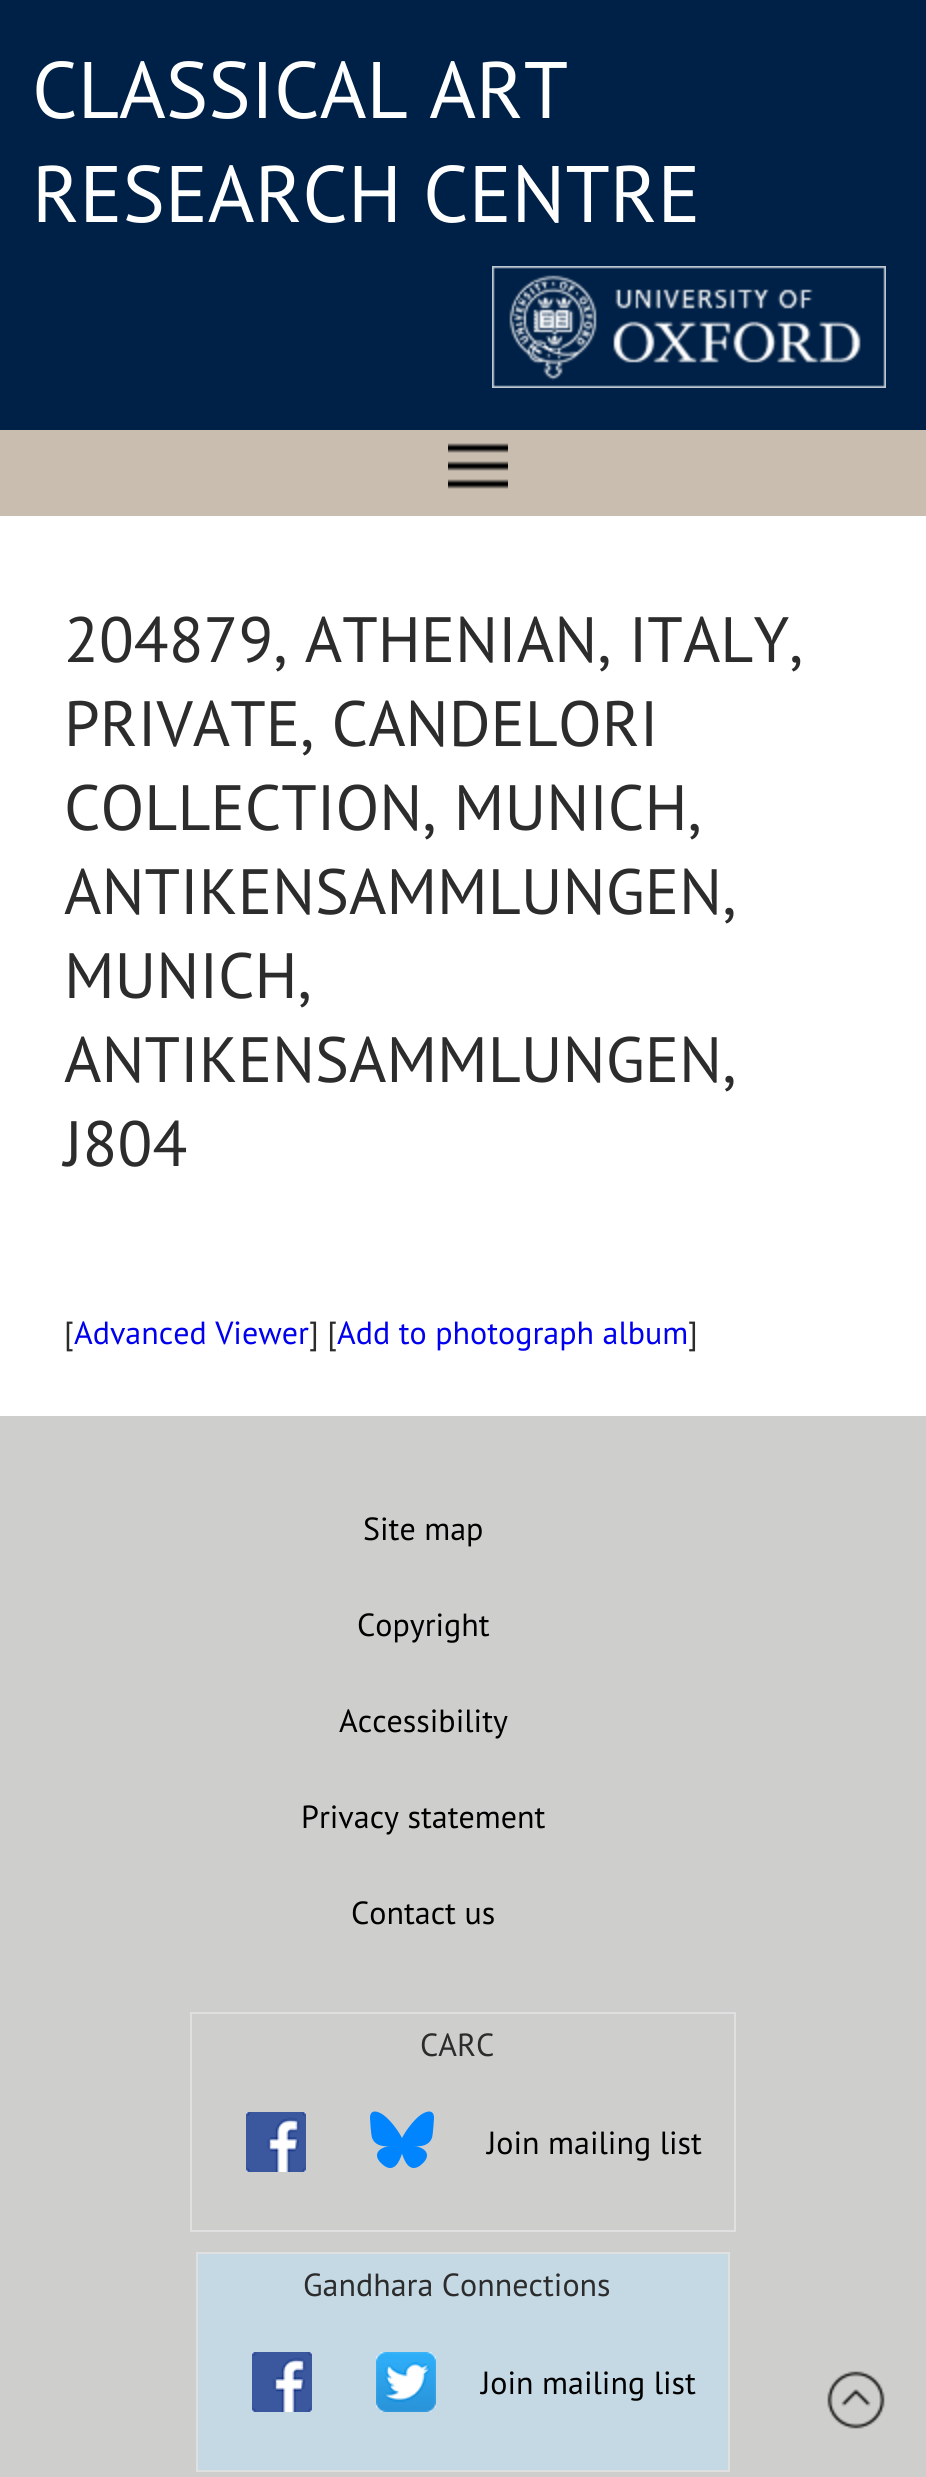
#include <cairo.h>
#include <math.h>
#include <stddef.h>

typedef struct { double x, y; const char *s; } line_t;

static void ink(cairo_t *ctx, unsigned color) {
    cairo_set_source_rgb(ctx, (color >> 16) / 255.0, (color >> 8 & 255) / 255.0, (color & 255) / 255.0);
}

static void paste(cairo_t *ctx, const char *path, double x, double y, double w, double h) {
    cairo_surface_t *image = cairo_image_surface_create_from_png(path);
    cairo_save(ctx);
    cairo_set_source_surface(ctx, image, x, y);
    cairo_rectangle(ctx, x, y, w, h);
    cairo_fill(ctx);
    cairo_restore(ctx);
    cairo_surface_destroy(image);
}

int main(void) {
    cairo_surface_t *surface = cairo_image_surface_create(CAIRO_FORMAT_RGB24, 926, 2477);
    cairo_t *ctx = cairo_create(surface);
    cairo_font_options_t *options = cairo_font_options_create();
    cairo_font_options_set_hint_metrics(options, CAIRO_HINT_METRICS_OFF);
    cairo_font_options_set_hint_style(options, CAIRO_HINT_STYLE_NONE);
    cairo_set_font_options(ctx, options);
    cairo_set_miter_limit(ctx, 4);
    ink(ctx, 0xFFFFFF);
    cairo_paint(ctx);
    ink(ctx, 0x002147);
    cairo_rectangle(ctx, 0, 0, 926, 430);
    cairo_fill(ctx);
    cairo_select_font_face(ctx, "PT Sans", CAIRO_FONT_SLANT_NORMAL, CAIRO_FONT_WEIGHT_NORMAL);
    cairo_set_font_size(ctx, 80);
    ink(ctx, 0xFFFFFF);
    cairo_move_to(ctx, 32, 118);
    cairo_show_text(ctx, "CLASSICAL ART");
    cairo_move_to(ctx, 32, 222);
    cairo_show_text(ctx, "RESEARCH CENTRE");
    paste(ctx, "media/1.png", 492, 266, 394, 122);
    ink(ctx, 0xC8BDAE);
    cairo_rectangle(ctx, 0, 430, 926, 86);
    cairo_fill(ctx);
    paste(ctx, "media/2.png", 448, 443, 60, 46);
    cairo_set_font_size(ctx, 64);
    ink(ctx, 0x2C2C2C);
    {
        static const line_t items[] = {
            {64, 662, "204879, ATHENIAN, ITALY,"},
            {64, 746, "PRIVATE, CANDELORI"},
            {64, 830, "COLLECTION, MUNICH,"},
            {64, 914, "ANTIKENSAMMLUNGEN,"},
            {64, 998, "MUNICH,"},
            {64, 1082, "ANTIKENSAMMLUNGEN,"},
            {64, 1166, "J804"},
        };
        for (size_t i = 0; i < sizeof items / sizeof *items; i++) {
            cairo_move_to(ctx, items[i].x, items[i].y);
            cairo_show_text(ctx, items[i].s);
        }
    }
    cairo_set_font_size(ctx, 32);
    cairo_move_to(ctx, 64, 1344);
    cairo_show_text(ctx, "[");
    ink(ctx, 0x0000EE);
    cairo_move_to(ctx, 74, 1344);
    cairo_show_text(ctx, "Advanced Viewer");
    ink(ctx, 0x2C2C2C);
    cairo_move_to(ctx, 309, 1344);
    cairo_show_text(ctx, "] [");
    ink(ctx, 0x0000EE);
    cairo_move_to(ctx, 337, 1344);
    cairo_show_text(ctx, "Add to photograph album");
    ink(ctx, 0x2C2C2C);
    cairo_move_to(ctx, 688, 1344);
    cairo_show_text(ctx, "]");
    ink(ctx, 0xCECECC);
    cairo_rectangle(ctx, 0, 1416, 926, 1061);
    cairo_fill(ctx);
    ink(ctx, 0x000000);
    {
        static const line_t items[] = {
            {363, 1540, "Site map"},
            {357, 1636, "Copyright"},
            {339, 1732, "Accessibility"},
            {301, 1828, "Privacy statement"},
            {351, 1924, "Contact us"},
        };
        for (size_t i = 0; i < sizeof items / sizeof *items; i++) {
            cairo_move_to(ctx, items[i].x, items[i].y);
            cairo_show_text(ctx, items[i].s);
        }
    }
    cairo_rectangle(ctx, 191, 2013, 544, 218);
    ink(ctx, 0xE0E0E0);
    cairo_stroke(ctx);
    ink(ctx, 0x2C2C2C);
    cairo_move_to(ctx, 420, 2056);
    cairo_show_text(ctx, "CARC");
    paste(ctx, "media/3.png", 246, 2112, 60, 60);
    paste(ctx, "media/4.png", 370, 2111, 64, 57);
    ink(ctx, 0x000000);
    cairo_move_to(ctx, 487, 2154);
    cairo_show_text(ctx, "Join mailing list");
    ink(ctx, 0xC5D9E4);
    cairo_rectangle(ctx, 197, 2253, 532, 218);
    cairo_fill_preserve(ctx);
    ink(ctx, 0xE0E0E0);
    cairo_stroke(ctx);
    ink(ctx, 0x2C2C2C);
    cairo_move_to(ctx, 303, 2296);
    cairo_show_text(ctx, "Gandhara Connections");
    paste(ctx, "media/3.png", 252, 2352, 60, 60);
    paste(ctx, "media/5.png", 376, 2352, 60, 60);
    ink(ctx, 0x000000);
    cairo_move_to(ctx, 481, 2394);
    cairo_show_text(ctx, "Join mailing list");
    paste(ctx, "media/6.png", 827, 2371, 58, 58);
    cairo_surface_write_to_png(surface, "image.png");
    cairo_font_options_destroy(options);
    cairo_destroy(ctx);
    cairo_surface_destroy(surface);
    return 0;
}
